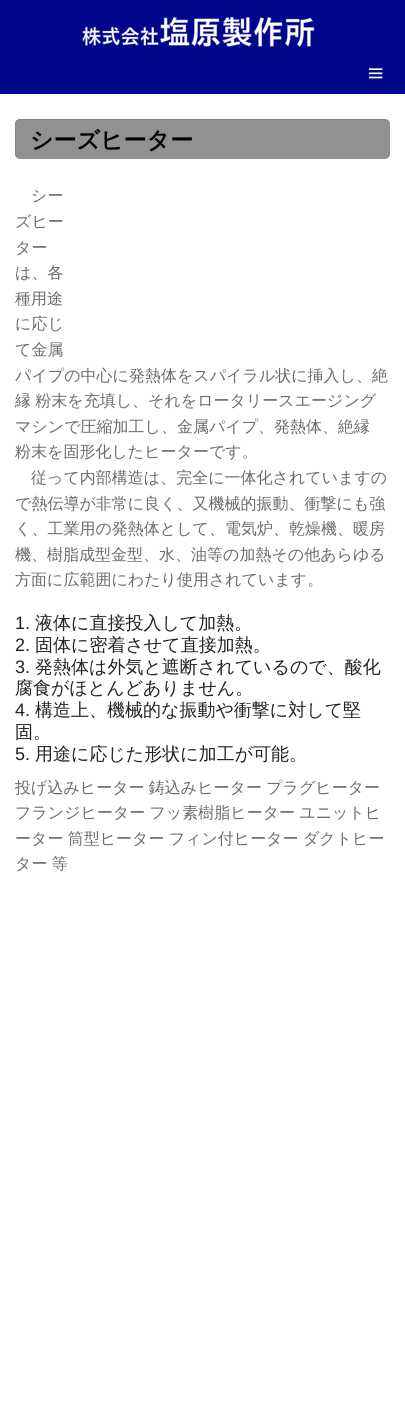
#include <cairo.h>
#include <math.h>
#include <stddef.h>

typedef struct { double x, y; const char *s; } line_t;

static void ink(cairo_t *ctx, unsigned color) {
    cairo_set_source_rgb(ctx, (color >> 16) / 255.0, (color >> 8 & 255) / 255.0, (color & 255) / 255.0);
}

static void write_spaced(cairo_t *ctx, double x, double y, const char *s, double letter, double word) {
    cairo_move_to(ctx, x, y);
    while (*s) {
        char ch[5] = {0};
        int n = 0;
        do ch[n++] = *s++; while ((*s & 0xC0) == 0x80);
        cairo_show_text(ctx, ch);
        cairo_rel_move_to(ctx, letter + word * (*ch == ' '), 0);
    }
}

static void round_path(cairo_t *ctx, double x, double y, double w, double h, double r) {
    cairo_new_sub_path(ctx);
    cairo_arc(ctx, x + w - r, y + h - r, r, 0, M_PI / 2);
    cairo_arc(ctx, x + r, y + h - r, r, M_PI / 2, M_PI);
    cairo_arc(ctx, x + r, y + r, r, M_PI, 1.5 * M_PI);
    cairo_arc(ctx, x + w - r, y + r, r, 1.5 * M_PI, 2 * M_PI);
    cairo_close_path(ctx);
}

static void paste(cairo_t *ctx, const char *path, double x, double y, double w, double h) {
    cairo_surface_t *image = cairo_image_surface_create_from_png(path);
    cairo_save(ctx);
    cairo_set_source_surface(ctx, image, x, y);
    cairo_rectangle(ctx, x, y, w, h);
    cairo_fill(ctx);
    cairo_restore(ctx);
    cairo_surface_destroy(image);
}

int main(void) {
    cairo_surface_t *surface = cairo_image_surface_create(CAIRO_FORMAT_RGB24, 405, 1418);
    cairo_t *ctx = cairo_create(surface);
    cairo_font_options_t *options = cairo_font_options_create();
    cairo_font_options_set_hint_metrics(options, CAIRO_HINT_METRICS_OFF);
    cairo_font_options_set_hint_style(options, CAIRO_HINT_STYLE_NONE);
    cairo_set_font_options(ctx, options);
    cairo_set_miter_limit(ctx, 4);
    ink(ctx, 0xFFFFFF);
    cairo_paint(ctx);
    ink(ctx, 0x000689);
    cairo_rectangle(ctx, 0, 0, 405, 94);
    cairo_fill(ctx);
    paste(ctx, "media/1.png", 82, 16, 233, 31);
    paste(ctx, "media/2.png", 369, 68, 14, 11);
    ink(ctx, 0x919191);
    round_path(ctx, 15, 119, 375, 40, 5);
    cairo_fill(ctx);
    cairo_set_source_rgba(ctx, 0, 0, 0, 0.1);
    cairo_new_path(ctx);
    cairo_move_to(ctx, 21, 120);
    cairo_line_to(ctx, 386, 120);
    cairo_line_to(ctx, 389, 121);
    cairo_curve_to(ctx, 388, 120, 386, 119, 385, 119);
    cairo_line_to(ctx, 20, 119);
    cairo_curve_to(ctx, 17, 119, 15, 121, 15, 124);
    cairo_line_to(ctx, 15, 154);
    cairo_curve_to(ctx, 15, 155, 16, 157, 17, 158);
    cairo_line_to(ctx, 16, 155);
    cairo_line_to(ctx, 16, 125);
    cairo_curve_to(ctx, 16, 122, 18, 120, 21, 120);
    cairo_close_path(ctx);
    cairo_fill(ctx);
    cairo_select_font_face(ctx, "WenQuanYi Zen Hei", CAIRO_FONT_SLANT_NORMAL, CAIRO_FONT_WEIGHT_BOLD);
    cairo_set_font_size(ctx, 23);
    ink(ctx, 0x000000);
    cairo_move_to(ctx, 30, 148);
    cairo_show_text(ctx, "シーズヒーター");
    cairo_select_font_face(ctx, "WenQuanYi Zen Hei Medium", CAIRO_FONT_SLANT_NORMAL, CAIRO_FONT_WEIGHT_NORMAL);
    cairo_set_font_size(ctx, 16);
    ink(ctx, 0x6B6B6B);
    {
        static const line_t items[] = {
            {31, 201, "シー"},
            {15, 227, "ズヒー"},
            {15, 253, "ター"},
            {15, 278, "は、各"},
            {15, 304, "種用途"},
            {15, 329, "に応じ"},
            {15, 355, "て金属"},
            {15, 381, "パイプの中心に発熱体をスパイラル状に挿入し、絶"},
        };
        for (size_t i = 0; i < sizeof items / sizeof *items; i++) {
            cairo_move_to(ctx, items[i].x, items[i].y);
            cairo_show_text(ctx, items[i].s);
        }
    }
    write_spaced(ctx, 15, 406, "縁 粉末を充填し、それをロータリースエージング", 0, -0.5);
    {
        static const line_t items[] = {
            {15, 432, "マシンで圧縮加工し、金属パイプ、発熱体、絶縁"},
            {15, 457, "粉末を固形化したヒーターです。"},
            {31, 483, "従って内部構造は、完全に一体化されていますの"},
            {15, 509, "で熱伝導が非常に良く、又機械的振動、衝撃にも強"},
            {15, 534, "く、工業用の発熱体として、電気炉、乾燥機、暖房"},
            {15, 560, "機、樹脂成型金型、水、油等の加熱その他あらゆる"},
            {15, 585, "方面に広範囲にわたり使用されています。"},
        };
        for (size_t i = 0; i < sizeof items / sizeof *items; i++) {
            cairo_move_to(ctx, items[i].x, items[i].y);
            cairo_show_text(ctx, items[i].s);
        }
    }
    cairo_select_font_face(ctx, "Liberation Sans", CAIRO_FONT_SLANT_NORMAL, CAIRO_FONT_WEIGHT_NORMAL);
    cairo_set_font_size(ctx, 18);
    ink(ctx, 0x222222);
    cairo_move_to(ctx, 15, 629);
    cairo_show_text(ctx, "1.");
    cairo_select_font_face(ctx, "WenQuanYi Zen Hei Medium", CAIRO_FONT_SLANT_NORMAL, CAIRO_FONT_WEIGHT_NORMAL);
    cairo_move_to(ctx, 35, 629);
    cairo_show_text(ctx, "液体に直接投入して加熱。");
    cairo_select_font_face(ctx, "Liberation Sans", CAIRO_FONT_SLANT_NORMAL, CAIRO_FONT_WEIGHT_NORMAL);
    cairo_move_to(ctx, 15, 651);
    cairo_show_text(ctx, "2.");
    cairo_select_font_face(ctx, "WenQuanYi Zen Hei Medium", CAIRO_FONT_SLANT_NORMAL, CAIRO_FONT_WEIGHT_NORMAL);
    cairo_move_to(ctx, 35, 651);
    cairo_show_text(ctx, "固体に密着させて直接加熱。");
    cairo_select_font_face(ctx, "Liberation Sans", CAIRO_FONT_SLANT_NORMAL, CAIRO_FONT_WEIGHT_NORMAL);
    cairo_move_to(ctx, 15, 673);
    cairo_show_text(ctx, "3.");
    cairo_select_font_face(ctx, "WenQuanYi Zen Hei Medium", CAIRO_FONT_SLANT_NORMAL, CAIRO_FONT_WEIGHT_NORMAL);
    cairo_move_to(ctx, 35, 673);
    cairo_show_text(ctx, "発熱体は外気と遮断されているので、酸化");
    cairo_move_to(ctx, 15, 694);
    cairo_show_text(ctx, "腐食がほとんどありません。");
    cairo_select_font_face(ctx, "Liberation Sans", CAIRO_FONT_SLANT_NORMAL, CAIRO_FONT_WEIGHT_NORMAL);
    cairo_move_to(ctx, 15, 716);
    cairo_show_text(ctx, "4.");
    cairo_select_font_face(ctx, "WenQuanYi Zen Hei Medium", CAIRO_FONT_SLANT_NORMAL, CAIRO_FONT_WEIGHT_NORMAL);
    cairo_move_to(ctx, 35, 716);
    cairo_show_text(ctx, "構造上、機械的な振動や衝撃に対して堅");
    cairo_move_to(ctx, 15, 738);
    cairo_show_text(ctx, "固。");
    cairo_select_font_face(ctx, "Liberation Sans", CAIRO_FONT_SLANT_NORMAL, CAIRO_FONT_WEIGHT_NORMAL);
    cairo_move_to(ctx, 15, 760);
    cairo_show_text(ctx, "5.");
    cairo_select_font_face(ctx, "WenQuanYi Zen Hei Medium", CAIRO_FONT_SLANT_NORMAL, CAIRO_FONT_WEIGHT_NORMAL);
    cairo_move_to(ctx, 35, 760);
    cairo_show_text(ctx, "用途に応じた形状に加工が可能。");
    cairo_set_font_size(ctx, 16);
    ink(ctx, 0x6B6B6B);
    {
        static const line_t items[] = {
            {15, 793, "投げ込みヒーター 鋳込みヒーター プラグヒーター"},
            {15, 818, "フランジヒーター フッ素樹脂ヒーター ユニットヒ"},
            {15, 844, "ーター 筒型ヒーター フィン付ヒーター ダクトヒー"},
            {15, 869, "ター 等"},
        };
        for (size_t i = 0; i < sizeof items / sizeof *items; i++) {
            write_spaced(ctx, items[i].x, items[i].y, items[i].s, 0, -0.5);
        }
    }
    cairo_surface_write_to_png(surface, "image.png");
    cairo_font_options_destroy(options);
    cairo_destroy(ctx);
    cairo_surface_destroy(surface);
    return 0;
}
